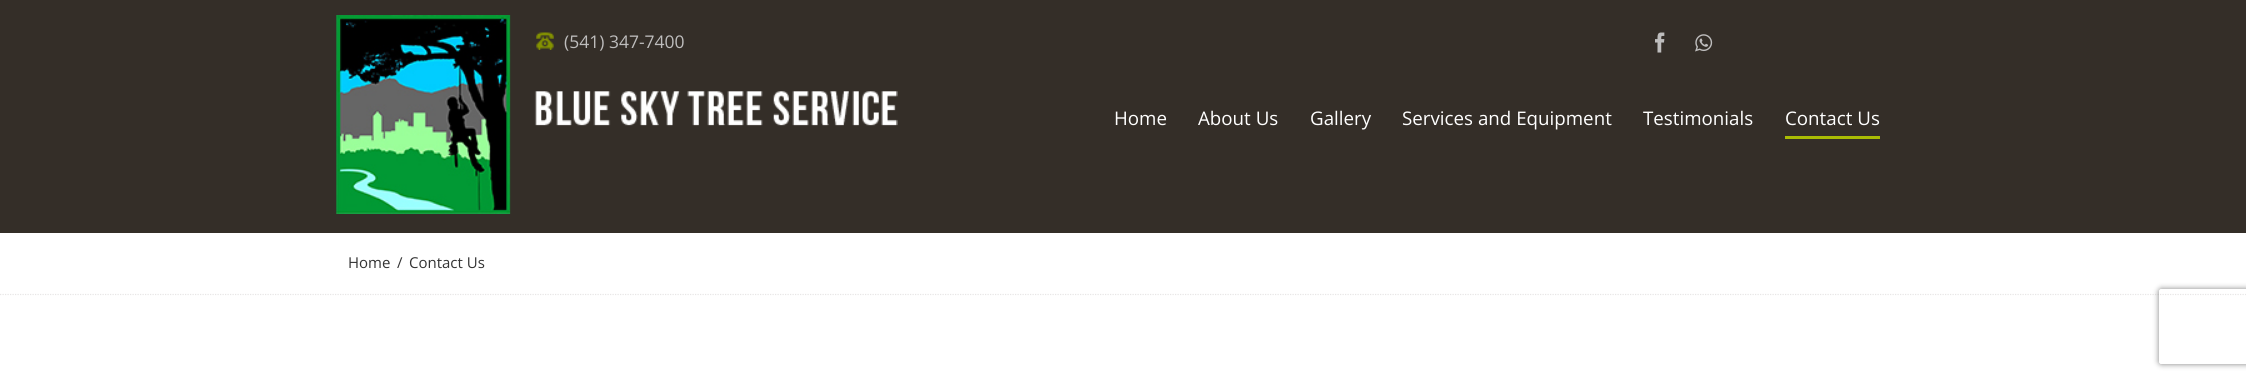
#include <cairo.h>
#include <math.h>
#include <stddef.h>

typedef struct { double x, y; const char *s; } line_t;

static void ink(cairo_t *ctx, unsigned color) {
    cairo_set_source_rgb(ctx, (color >> 16) / 255.0, (color >> 8 & 255) / 255.0, (color & 255) / 255.0);
}

static void round_path(cairo_t *ctx, double x, double y, double w, double h, double r) {
    cairo_new_sub_path(ctx);
    cairo_arc(ctx, x + w - r, y + h - r, r, 0, M_PI / 2);
    cairo_arc(ctx, x + r, y + h - r, r, M_PI / 2, M_PI);
    cairo_arc(ctx, x + r, y + r, r, M_PI, 1.5 * M_PI);
    cairo_arc(ctx, x + w - r, y + r, r, 1.5 * M_PI, 2 * M_PI);
    cairo_close_path(ctx);
}

static void blur_box(cairo_t *ctx, double x, double y, double w, double h, double r, double blur, double alpha) {
    cairo_push_group_with_content(ctx, CAIRO_CONTENT_ALPHA);
    cairo_set_operator(ctx, CAIRO_OPERATOR_SOURCE);
    for (int i = 15; i >= -15 && fmin(w, h) + blur * i / 3 > 0; i -= 2) {
        double e = blur * i / 6;
        cairo_set_source_rgba(ctx, 0, 0, 0, alpha * erfc((i - 1) / 8.5) / 2);
        round_path(ctx, x - e, y - e, w + 2 * e, h + 2 * e, fmax(0, fmin(r + e + blur * .6, fmin(w, h) / 2 + e)));
        cairo_fill(ctx);
    }
    cairo_pattern_t *soft = cairo_pop_group(ctx);
    cairo_mask(ctx, soft);
    cairo_pattern_destroy(soft);
}

static void paste(cairo_t *ctx, const char *path, double x, double y, double w, double h) {
    cairo_surface_t *image = cairo_image_surface_create_from_png(path);
    cairo_save(ctx);
    cairo_set_source_surface(ctx, image, x, y);
    cairo_rectangle(ctx, x, y, w, h);
    cairo_fill(ctx);
    cairo_restore(ctx);
    cairo_surface_destroy(image);
}

int main(void) {
    cairo_surface_t *surface = cairo_image_surface_create(CAIRO_FORMAT_RGB24, 2246, 381);
    cairo_t *ctx = cairo_create(surface);
    cairo_font_options_t *options = cairo_font_options_create();
    cairo_font_options_set_hint_metrics(options, CAIRO_HINT_METRICS_OFF);
    cairo_font_options_set_hint_style(options, CAIRO_HINT_STYLE_NONE);
    cairo_set_font_options(ctx, options);
    cairo_set_miter_limit(ctx, 4);
    ink(ctx, 0xFFFFFF);
    cairo_paint(ctx);
    ink(ctx, 0x342E28);
    cairo_rectangle(ctx, 0, 0, 2246, 233);
    cairo_fill(ctx);
    paste(ctx, "media/4.png", 336, 15, 562, 199);
    paste(ctx, "media/1.png", 536, 32, 18, 18);
    cairo_select_font_face(ctx, "Open Sans", CAIRO_FONT_SLANT_NORMAL, CAIRO_FONT_WEIGHT_NORMAL);
    cairo_set_font_size(ctx, 17.5);
    ink(ctx, 0xBEBDBD);
    cairo_move_to(ctx, 564, 48);
    cairo_show_text(ctx, "(541) 347-7400");
    paste(ctx, "media/2.png", 1655, 32, 10, 21);
    paste(ctx, "media/3.png", 1695, 34, 18, 18);
    cairo_set_font_size(ctx, 18.75);
    ink(ctx, 0xFFFFFF);
    {
        static const line_t items[] = {
            {1114, 125, "Home"},
            {1198, 125, "About Us"},
            {1310, 125, "Gallery"},
            {1402, 125, "Services and Equipment"},
            {1643, 125, "Testimonials"},
        };
        for (size_t i = 0; i < sizeof items / sizeof *items; i++) {
            cairo_move_to(ctx, items[i].x, items[i].y);
            cairo_show_text(ctx, items[i].s);
        }
    }
    ink(ctx, 0xAABC04);
    cairo_rectangle(ctx, 1785, 136, 95, 3);
    cairo_fill(ctx);
    ink(ctx, 0xFFFFFF);
    cairo_move_to(ctx, 1785, 125);
    cairo_show_text(ctx, "Contact Us");
    cairo_new_path(ctx);
    cairo_move_to(ctx, 0, 294.5);
    cairo_line_to(ctx, 2246, 294.5);
    ink(ctx, 0xE7E6E6);
    cairo_set_line_width(ctx, 1.2);
    cairo_set_dash(ctx, (double[]){1.25, 1.25}, 2, 0);
    cairo_stroke(ctx);
    cairo_set_font_size(ctx, 15);
    ink(ctx, 0x333333);
    {
        static const line_t items[] = {
            {348, 268, "Home"},
            {397, 268, "/"},
            {409, 268, "Contact Us"},
        };
        for (size_t i = 0; i < sizeof items / sizeof *items; i++) {
            cairo_move_to(ctx, items[i].x, items[i].y);
            cairo_show_text(ctx, items[i].s);
        }
    }
    cairo_save(ctx);
    cairo_set_fill_rule(ctx, CAIRO_FILL_RULE_EVEN_ODD);
    cairo_new_path(ctx);
    cairo_move_to(ctx, 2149, 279);
    cairo_line_to(ctx, 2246, 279);
    cairo_line_to(ctx, 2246, 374);
    cairo_line_to(ctx, 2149, 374);
    cairo_close_path(ctx);
    cairo_move_to(ctx, 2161.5, 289);
    cairo_line_to(ctx, 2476.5, 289);
    cairo_curve_to(ctx, 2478, 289, 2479, 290, 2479, 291.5);
    cairo_line_to(ctx, 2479, 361.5);
    cairo_curve_to(ctx, 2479, 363, 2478, 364, 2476.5, 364);
    cairo_line_to(ctx, 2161.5, 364);
    cairo_curve_to(ctx, 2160, 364, 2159, 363, 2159, 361.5);
    cairo_line_to(ctx, 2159, 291.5);
    cairo_curve_to(ctx, 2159, 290, 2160, 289, 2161.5, 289);
    cairo_close_path(ctx);
    cairo_clip(ctx);
    ink(ctx, 0x808080);
    blur_box(ctx, 2159, 289, 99, 75, 2.5, 3, 1);
    cairo_restore(ctx);
    cairo_surface_write_to_png(surface, "image.png");
    cairo_font_options_destroy(options);
    cairo_destroy(ctx);
    cairo_surface_destroy(surface);
    return 0;
}
